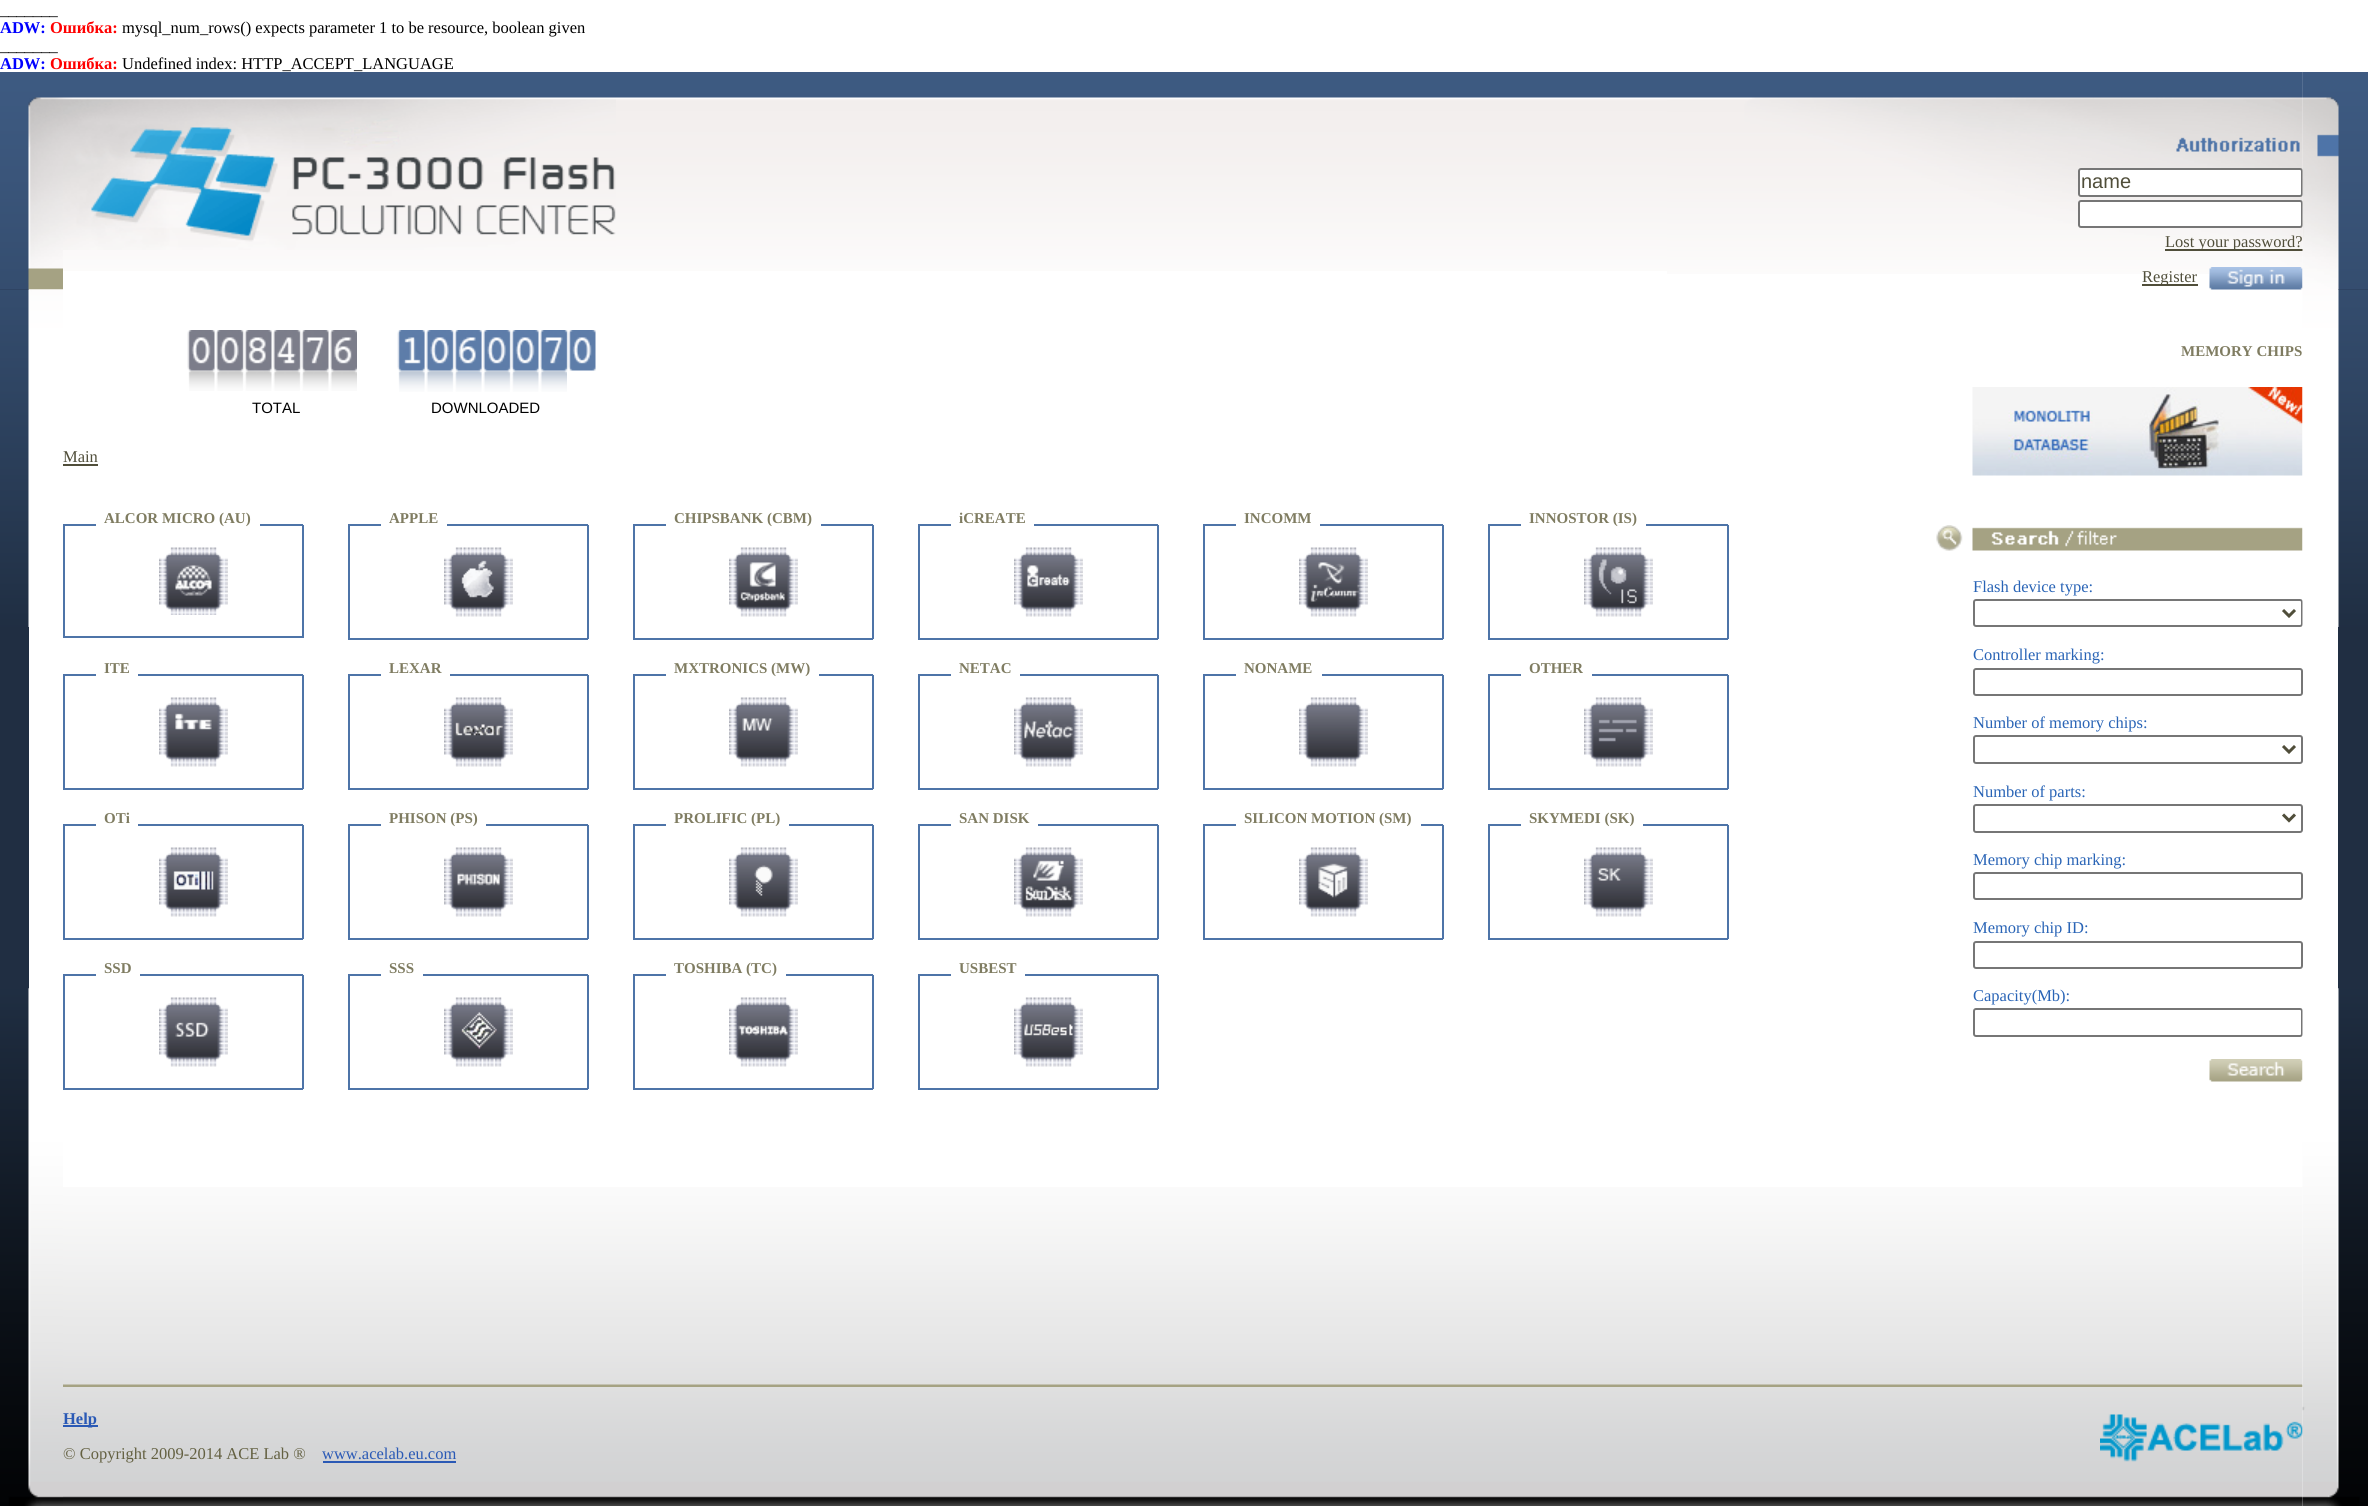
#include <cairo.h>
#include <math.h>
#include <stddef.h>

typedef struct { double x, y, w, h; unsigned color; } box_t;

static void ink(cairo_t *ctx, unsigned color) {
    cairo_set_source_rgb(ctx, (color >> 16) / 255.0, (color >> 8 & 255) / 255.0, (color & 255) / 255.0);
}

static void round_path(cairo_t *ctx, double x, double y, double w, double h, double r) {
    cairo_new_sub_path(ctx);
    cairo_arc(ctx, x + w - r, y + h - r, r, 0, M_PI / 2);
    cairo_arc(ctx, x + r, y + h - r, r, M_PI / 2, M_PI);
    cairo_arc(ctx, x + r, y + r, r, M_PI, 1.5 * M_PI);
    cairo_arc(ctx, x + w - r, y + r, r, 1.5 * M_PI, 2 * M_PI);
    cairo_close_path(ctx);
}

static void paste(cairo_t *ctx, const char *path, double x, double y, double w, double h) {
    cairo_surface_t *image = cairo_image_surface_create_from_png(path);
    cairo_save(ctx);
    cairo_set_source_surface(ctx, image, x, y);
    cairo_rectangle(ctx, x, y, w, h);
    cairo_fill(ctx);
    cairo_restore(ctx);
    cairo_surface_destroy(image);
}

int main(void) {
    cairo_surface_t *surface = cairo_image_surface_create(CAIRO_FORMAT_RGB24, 2368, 1506);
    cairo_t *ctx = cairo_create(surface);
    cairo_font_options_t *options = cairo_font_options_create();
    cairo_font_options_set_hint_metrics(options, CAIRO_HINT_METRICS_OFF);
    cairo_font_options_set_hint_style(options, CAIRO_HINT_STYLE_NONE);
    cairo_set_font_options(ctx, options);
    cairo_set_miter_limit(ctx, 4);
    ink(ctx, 0xFFFFFF);
    cairo_paint(ctx);
    cairo_select_font_face(ctx, "Liberation Serif", CAIRO_FONT_SLANT_NORMAL, CAIRO_FONT_WEIGHT_NORMAL);
    cairo_set_font_size(ctx, 16.5);
    ink(ctx, 0x000000);
    cairo_move_to(ctx, 0, 15);
    cairo_show_text(ctx, "_______");
    cairo_select_font_face(ctx, "Liberation Serif", CAIRO_FONT_SLANT_NORMAL, CAIRO_FONT_WEIGHT_BOLD);
    ink(ctx, 0x0000FF);
    cairo_move_to(ctx, 0, 33);
    cairo_show_text(ctx, "ADW:");
    ink(ctx, 0xFF0000);
    cairo_move_to(ctx, 50, 33);
    cairo_show_text(ctx, "Ошибка:");
    cairo_select_font_face(ctx, "Liberation Serif", CAIRO_FONT_SLANT_NORMAL, CAIRO_FONT_WEIGHT_NORMAL);
    ink(ctx, 0x000000);
    cairo_move_to(ctx, 122, 33);
    cairo_show_text(ctx, "mysql_num_rows() expects parameter 1 to be resource, boolean given");
    cairo_move_to(ctx, 0, 51);
    cairo_show_text(ctx, "_______");
    cairo_select_font_face(ctx, "Liberation Serif", CAIRO_FONT_SLANT_NORMAL, CAIRO_FONT_WEIGHT_BOLD);
    ink(ctx, 0x0000FF);
    cairo_move_to(ctx, 0, 69);
    cairo_show_text(ctx, "ADW:");
    ink(ctx, 0xFF0000);
    cairo_move_to(ctx, 50, 69);
    cairo_show_text(ctx, "Ошибка:");
    cairo_select_font_face(ctx, "Liberation Serif", CAIRO_FONT_SLANT_NORMAL, CAIRO_FONT_WEIGHT_NORMAL);
    ink(ctx, 0x000000);
    cairo_move_to(ctx, 122, 69);
    cairo_show_text(ctx, "Undefined index: HTTP_ACCEPT_LANGUAGE");
    paste(ctx, "media/1.png", 63, 1187, 2240, 319);
    ink(ctx, 0x202E42);
    cairo_rectangle(ctx, 0, 289, 29, 700);
    cairo_fill(ctx);
    paste(ctx, "media/2.png", 0, 72, 63, 218);
    paste(ctx, "media/3.png", 63, 72, 2240, 199);
    paste(ctx, "media/4.png", 63, 97, 553, 153);
    paste(ctx, "media/5.png", 1667, 72, 636, 202);
    ink(ctx, 0xFFFFFF);
    round_path(ctx, 2079, 169, 223, 27, 2);
    cairo_fill_preserve(ctx);
    ink(ctx, 0x767676);
    cairo_stroke(ctx);
    cairo_select_font_face(ctx, "Liberation Sans", CAIRO_FONT_SLANT_NORMAL, CAIRO_FONT_WEIGHT_NORMAL);
    cairo_set_font_size(ctx, 20);
    ink(ctx, 0x504E3A);
    cairo_move_to(ctx, 2081, 188);
    cairo_show_text(ctx, "name");
    ink(ctx, 0xFFFFFF);
    round_path(ctx, 2079, 201, 223, 26, 2);
    cairo_fill_preserve(ctx);
    ink(ctx, 0x767676);
    cairo_stroke(ctx);
    ink(ctx, 0x504E3A);
    cairo_rectangle(ctx, 2165, 249, 138, 2);
    cairo_fill(ctx);
    cairo_select_font_face(ctx, "Liberation Serif", CAIRO_FONT_SLANT_NORMAL, CAIRO_FONT_WEIGHT_NORMAL);
    cairo_set_font_size(ctx, 16.5);
    cairo_move_to(ctx, 2165, 247);
    cairo_show_text(ctx, "Lost your password?");
    cairo_rectangle(ctx, 2142, 284, 56, 2);
    cairo_fill(ctx);
    cairo_move_to(ctx, 2142, 282);
    cairo_show_text(ctx, "Register");
    paste(ctx, "media/6.png", 2209, 267, 94, 23);
    ink(ctx, 0x202E42);
    cairo_rectangle(ctx, 2338, 289, 30, 700);
    cairo_fill(ctx);
    paste(ctx, "media/7.png", 2302, 72, 66, 218);
    paste(ctx, "media/8.png", 0, 289, 63, 338);
    paste(ctx, "media/9.png", 0, 988, 63, 1);
    paste(ctx, "media/10.png", 0, 988, 63, 518);
    paste(ctx, "media/11.png", 63, 1384, 2240, 1);
    paste(ctx, "media/19.png", 188, 370, 169, 21);
    paste(ctx, "media/12.png", 187, 330, 170, 41);
    paste(ctx, "media/13.png", 191, 337, 20, 27);
    paste(ctx, "media/14.png", 220, 337, 19, 27);
    paste(ctx, "media/15.png", 248, 337, 18, 27);
    paste(ctx, "media/16.png", 277, 337, 19, 27);
    paste(ctx, "media/17.png", 305, 337, 20, 27);
    paste(ctx, "media/18.png", 334, 337, 18, 27);
    cairo_select_font_face(ctx, "Liberation Sans", CAIRO_FONT_SLANT_NORMAL, CAIRO_FONT_WEIGHT_NORMAL);
    cairo_set_font_size(ctx, 15);
    ink(ctx, 0x000000);
    cairo_move_to(ctx, 252, 413);
    cairo_show_text(ctx, "TOTAL");
    paste(ctx, "media/28.png", 398, 370, 169, 22);
    paste(ctx, "media/20.png", 397, 330, 199, 41);
    paste(ctx, "media/21.png", 403, 337, 18, 27);
    paste(ctx, "media/22.png", 430, 337, 19, 27);
    paste(ctx, "media/23.png", 458, 337, 18, 27);
    paste(ctx, "media/24.png", 487, 337, 19, 27);
    paste(ctx, "media/25.png", 515, 337, 20, 27);
    paste(ctx, "media/26.png", 544, 337, 19, 27);
    paste(ctx, "media/27.png", 572, 337, 20, 27);
    cairo_move_to(ctx, 431, 413);
    cairo_show_text(ctx, "DOWNLOADED");
    cairo_select_font_face(ctx, "Liberation Serif", CAIRO_FONT_SLANT_NORMAL, CAIRO_FONT_WEIGHT_NORMAL);
    cairo_set_font_size(ctx, 16.5);
    ink(ctx, 0x504E3A);
    cairo_move_to(ctx, 63, 462);
    cairo_show_text(ctx, "Main");
    cairo_rectangle(ctx, 63, 464, 35, 2);
    cairo_fill(ctx);
    ink(ctx, 0x4E74A8);
    cairo_rectangle(ctx, 63, 524, 33, 2);
    cairo_fill(ctx);
    cairo_select_font_face(ctx, "Liberation Serif", CAIRO_FONT_SLANT_NORMAL, CAIRO_FONT_WEIGHT_BOLD);
    cairo_set_font_size(ctx, 15);
    ink(ctx, 0x7F7C61);
    cairo_move_to(ctx, 104, 523);
    cairo_show_text(ctx, "ALCOR MICRO (AU)");
    {
        static const box_t items[] = {
            {260, 524, 43, 2, 0x4E74A8},
            {302, 525, 2, 113, 0x4E74A8},
            {63, 525, 2, 90, 0x4E74A8},
        };
        for (size_t i = 0; i < sizeof items / sizeof *items; i++) {
            ink(ctx, items[i].color);
            cairo_rectangle(ctx, items[i].x, items[i].y, items[i].w, items[i].h);
            cairo_fill(ctx);
        }
    }
    paste(ctx, "media/29.png", 159, 547, 69, 68);
    cairo_rectangle(ctx, 63, 636, 240, 2);
    cairo_fill(ctx);
    cairo_rectangle(ctx, 63, 615, 2, 23);
    cairo_fill(ctx);
    ink(ctx, 0x7F7C61);
    cairo_move_to(ctx, 389, 523);
    cairo_show_text(ctx, "APPLE");
    {
        static const box_t items[] = {
            {348, 524, 33, 2, 0x4E74A8},
            {447, 524, 141, 2, 0x4E74A8},
            {587, 525, 2, 114, 0x4E74A8},
            {348, 525, 2, 92, 0x4E74A8},
        };
        for (size_t i = 0; i < sizeof items / sizeof *items; i++) {
            ink(ctx, items[i].color);
            cairo_rectangle(ctx, items[i].x, items[i].y, items[i].w, items[i].h);
            cairo_fill(ctx);
        }
    }
    paste(ctx, "media/30.png", 444, 547, 69, 70);
    {
        static const box_t items[] = {
            {348, 638, 240, 2, 0x4E74A8},
            {348, 617, 2, 22, 0x4E74A8},
            {633, 524, 33, 2, 0x4E74A8},
        };
        for (size_t i = 0; i < sizeof items / sizeof *items; i++) {
            ink(ctx, items[i].color);
            cairo_rectangle(ctx, items[i].x, items[i].y, items[i].w, items[i].h);
            cairo_fill(ctx);
        }
    }
    ink(ctx, 0x7F7C61);
    cairo_move_to(ctx, 674, 523);
    cairo_show_text(ctx, "CHIPSBANK (CBM)");
    {
        static const box_t items[] = {
            {821, 524, 52, 2, 0x4E74A8},
            {872, 525, 2, 114, 0x4E74A8},
            {633, 525, 2, 92, 0x4E74A8},
        };
        for (size_t i = 0; i < sizeof items / sizeof *items; i++) {
            ink(ctx, items[i].color);
            cairo_rectangle(ctx, items[i].x, items[i].y, items[i].w, items[i].h);
            cairo_fill(ctx);
        }
    }
    paste(ctx, "media/31.png", 729, 547, 69, 70);
    cairo_rectangle(ctx, 633, 638, 240, 2);
    cairo_fill(ctx);
    cairo_rectangle(ctx, 633, 617, 2, 22);
    cairo_fill(ctx);
    ink(ctx, 0x7F7C61);
    cairo_move_to(ctx, 959, 523);
    cairo_show_text(ctx, "iCREATE");
    {
        static const box_t items[] = {
            {918, 524, 33, 2, 0x4E74A8},
            {1034, 524, 124, 2, 0x4E74A8},
            {1157, 525, 2, 114, 0x4E74A8},
            {918, 525, 2, 92, 0x4E74A8},
        };
        for (size_t i = 0; i < sizeof items / sizeof *items; i++) {
            ink(ctx, items[i].color);
            cairo_rectangle(ctx, items[i].x, items[i].y, items[i].w, items[i].h);
            cairo_fill(ctx);
        }
    }
    paste(ctx, "media/32.png", 1014, 547, 69, 70);
    cairo_rectangle(ctx, 918, 638, 240, 2);
    cairo_fill(ctx);
    cairo_rectangle(ctx, 918, 617, 2, 22);
    cairo_fill(ctx);
    ink(ctx, 0x7F7C61);
    cairo_move_to(ctx, 1244, 523);
    cairo_show_text(ctx, "INCOMM");
    {
        static const box_t items[] = {
            {1203, 524, 33, 2, 0x4E74A8},
            {1320, 524, 123, 2, 0x4E74A8},
            {1442, 525, 2, 114, 0x4E74A8},
            {1203, 525, 2, 92, 0x4E74A8},
        };
        for (size_t i = 0; i < sizeof items / sizeof *items; i++) {
            ink(ctx, items[i].color);
            cairo_rectangle(ctx, items[i].x, items[i].y, items[i].w, items[i].h);
            cairo_fill(ctx);
        }
    }
    paste(ctx, "media/33.png", 1299, 547, 69, 70);
    {
        static const box_t items[] = {
            {1203, 638, 240, 2, 0x4E74A8},
            {1203, 617, 2, 22, 0x4E74A8},
            {1488, 524, 33, 2, 0x4E74A8},
        };
        for (size_t i = 0; i < sizeof items / sizeof *items; i++) {
            ink(ctx, items[i].color);
            cairo_rectangle(ctx, items[i].x, items[i].y, items[i].w, items[i].h);
            cairo_fill(ctx);
        }
    }
    ink(ctx, 0x7F7C61);
    cairo_move_to(ctx, 1529, 523);
    cairo_show_text(ctx, "INNOSTOR (IS)");
    {
        static const box_t items[] = {
            {1646, 524, 82, 2, 0x4E74A8},
            {1727, 525, 2, 114, 0x4E74A8},
            {1488, 525, 2, 92, 0x4E74A8},
        };
        for (size_t i = 0; i < sizeof items / sizeof *items; i++) {
            ink(ctx, items[i].color);
            cairo_rectangle(ctx, items[i].x, items[i].y, items[i].w, items[i].h);
            cairo_fill(ctx);
        }
    }
    paste(ctx, "media/34.png", 1584, 547, 69, 70);
    cairo_rectangle(ctx, 1488, 638, 240, 2);
    cairo_fill(ctx);
    cairo_rectangle(ctx, 1488, 617, 2, 22);
    cairo_fill(ctx);
    ink(ctx, 0x7F7C61);
    cairo_move_to(ctx, 104, 673);
    cairo_show_text(ctx, "ITE");
    {
        static const box_t items[] = {
            {63, 674, 33, 2, 0x4E74A8},
            {138, 674, 165, 2, 0x4E74A8},
            {302, 675, 2, 114, 0x4E74A8},
            {63, 675, 2, 92, 0x4E74A8},
        };
        for (size_t i = 0; i < sizeof items / sizeof *items; i++) {
            ink(ctx, items[i].color);
            cairo_rectangle(ctx, items[i].x, items[i].y, items[i].w, items[i].h);
            cairo_fill(ctx);
        }
    }
    paste(ctx, "media/35.png", 159, 697, 69, 70);
    cairo_rectangle(ctx, 63, 788, 240, 2);
    cairo_fill(ctx);
    cairo_rectangle(ctx, 63, 767, 2, 22);
    cairo_fill(ctx);
    ink(ctx, 0x7F7C61);
    cairo_move_to(ctx, 389, 673);
    cairo_show_text(ctx, "LEXAR");
    {
        static const box_t items[] = {
            {348, 674, 33, 2, 0x4E74A8},
            {450, 674, 138, 2, 0x4E74A8},
            {587, 675, 2, 114, 0x4E74A8},
            {348, 675, 2, 92, 0x4E74A8},
        };
        for (size_t i = 0; i < sizeof items / sizeof *items; i++) {
            ink(ctx, items[i].color);
            cairo_rectangle(ctx, items[i].x, items[i].y, items[i].w, items[i].h);
            cairo_fill(ctx);
        }
    }
    paste(ctx, "media/36.png", 444, 697, 69, 70);
    {
        static const box_t items[] = {
            {348, 788, 240, 2, 0x4E74A8},
            {348, 767, 2, 22, 0x4E74A8},
            {633, 674, 33, 2, 0x4E74A8},
        };
        for (size_t i = 0; i < sizeof items / sizeof *items; i++) {
            ink(ctx, items[i].color);
            cairo_rectangle(ctx, items[i].x, items[i].y, items[i].w, items[i].h);
            cairo_fill(ctx);
        }
    }
    ink(ctx, 0x7F7C61);
    cairo_move_to(ctx, 674, 673);
    cairo_show_text(ctx, "MXTRONICS (MW)");
    {
        static const box_t items[] = {
            {819, 674, 54, 2, 0x4E74A8},
            {872, 675, 2, 114, 0x4E74A8},
            {633, 675, 2, 92, 0x4E74A8},
        };
        for (size_t i = 0; i < sizeof items / sizeof *items; i++) {
            ink(ctx, items[i].color);
            cairo_rectangle(ctx, items[i].x, items[i].y, items[i].w, items[i].h);
            cairo_fill(ctx);
        }
    }
    paste(ctx, "media/37.png", 729, 697, 69, 70);
    cairo_rectangle(ctx, 633, 788, 240, 2);
    cairo_fill(ctx);
    cairo_rectangle(ctx, 633, 767, 2, 22);
    cairo_fill(ctx);
    ink(ctx, 0x7F7C61);
    cairo_move_to(ctx, 959, 673);
    cairo_show_text(ctx, "NETAC");
    {
        static const box_t items[] = {
            {918, 674, 33, 2, 0x4E74A8},
            {1020, 674, 138, 2, 0x4E74A8},
            {1157, 675, 2, 114, 0x4E74A8},
            {918, 675, 2, 92, 0x4E74A8},
        };
        for (size_t i = 0; i < sizeof items / sizeof *items; i++) {
            ink(ctx, items[i].color);
            cairo_rectangle(ctx, items[i].x, items[i].y, items[i].w, items[i].h);
            cairo_fill(ctx);
        }
    }
    paste(ctx, "media/38.png", 1014, 697, 69, 70);
    cairo_rectangle(ctx, 918, 788, 240, 2);
    cairo_fill(ctx);
    cairo_rectangle(ctx, 918, 767, 2, 22);
    cairo_fill(ctx);
    ink(ctx, 0x7F7C61);
    cairo_move_to(ctx, 1244, 673);
    cairo_show_text(ctx, "NONAME");
    {
        static const box_t items[] = {
            {1203, 674, 33, 2, 0x4E74A8},
            {1322, 674, 121, 2, 0x4E74A8},
            {1442, 675, 2, 114, 0x4E74A8},
            {1203, 675, 2, 92, 0x4E74A8},
        };
        for (size_t i = 0; i < sizeof items / sizeof *items; i++) {
            ink(ctx, items[i].color);
            cairo_rectangle(ctx, items[i].x, items[i].y, items[i].w, items[i].h);
            cairo_fill(ctx);
        }
    }
    paste(ctx, "media/39.png", 1299, 697, 69, 70);
    cairo_rectangle(ctx, 1203, 788, 240, 2);
    cairo_fill(ctx);
    cairo_rectangle(ctx, 1203, 767, 2, 22);
    cairo_fill(ctx);
    ink(ctx, 0x7F7C61);
    cairo_move_to(ctx, 1529, 673);
    cairo_show_text(ctx, "OTHER");
    {
        static const box_t items[] = {
            {1488, 674, 33, 2, 0x4E74A8},
            {1592, 674, 136, 2, 0x4E74A8},
            {1727, 675, 2, 114, 0x4E74A8},
            {1488, 675, 2, 92, 0x4E74A8},
        };
        for (size_t i = 0; i < sizeof items / sizeof *items; i++) {
            ink(ctx, items[i].color);
            cairo_rectangle(ctx, items[i].x, items[i].y, items[i].w, items[i].h);
            cairo_fill(ctx);
        }
    }
    paste(ctx, "media/40.png", 1584, 697, 69, 70);
    cairo_rectangle(ctx, 1488, 788, 240, 2);
    cairo_fill(ctx);
    cairo_rectangle(ctx, 1488, 767, 2, 22);
    cairo_fill(ctx);
    ink(ctx, 0x7F7C61);
    cairo_move_to(ctx, 104, 823);
    cairo_show_text(ctx, "OTi");
    {
        static const box_t items[] = {
            {63, 824, 33, 2, 0x4E74A8},
            {138, 824, 165, 2, 0x4E74A8},
            {302, 825, 2, 114, 0x4E74A8},
            {63, 825, 2, 92, 0x4E74A8},
        };
        for (size_t i = 0; i < sizeof items / sizeof *items; i++) {
            ink(ctx, items[i].color);
            cairo_rectangle(ctx, items[i].x, items[i].y, items[i].w, items[i].h);
            cairo_fill(ctx);
        }
    }
    paste(ctx, "media/41.png", 159, 847, 69, 70);
    {
        static const box_t items[] = {
            {63, 938, 240, 2, 0x4E74A8},
            {63, 917, 2, 22, 0x4E74A8},
            {348, 824, 33, 2, 0x4E74A8},
        };
        for (size_t i = 0; i < sizeof items / sizeof *items; i++) {
            ink(ctx, items[i].color);
            cairo_rectangle(ctx, items[i].x, items[i].y, items[i].w, items[i].h);
            cairo_fill(ctx);
        }
    }
    ink(ctx, 0x7F7C61);
    cairo_move_to(ctx, 389, 823);
    cairo_show_text(ctx, "PHISON (PS)");
    {
        static const box_t items[] = {
            {486, 824, 102, 2, 0x4E74A8},
            {587, 825, 2, 114, 0x4E74A8},
            {348, 825, 2, 92, 0x4E74A8},
        };
        for (size_t i = 0; i < sizeof items / sizeof *items; i++) {
            ink(ctx, items[i].color);
            cairo_rectangle(ctx, items[i].x, items[i].y, items[i].w, items[i].h);
            cairo_fill(ctx);
        }
    }
    paste(ctx, "media/42.png", 444, 847, 69, 70);
    {
        static const box_t items[] = {
            {348, 938, 240, 2, 0x4E74A8},
            {348, 917, 2, 22, 0x4E74A8},
            {633, 824, 33, 2, 0x4E74A8},
        };
        for (size_t i = 0; i < sizeof items / sizeof *items; i++) {
            ink(ctx, items[i].color);
            cairo_rectangle(ctx, items[i].x, items[i].y, items[i].w, items[i].h);
            cairo_fill(ctx);
        }
    }
    ink(ctx, 0x7F7C61);
    cairo_move_to(ctx, 674, 823);
    cairo_show_text(ctx, "PROLIFIC (PL)");
    {
        static const box_t items[] = {
            {789, 824, 84, 2, 0x4E74A8},
            {872, 825, 2, 114, 0x4E74A8},
            {633, 825, 2, 92, 0x4E74A8},
        };
        for (size_t i = 0; i < sizeof items / sizeof *items; i++) {
            ink(ctx, items[i].color);
            cairo_rectangle(ctx, items[i].x, items[i].y, items[i].w, items[i].h);
            cairo_fill(ctx);
        }
    }
    paste(ctx, "media/43.png", 729, 847, 69, 70);
    cairo_rectangle(ctx, 633, 938, 240, 2);
    cairo_fill(ctx);
    cairo_rectangle(ctx, 633, 917, 2, 22);
    cairo_fill(ctx);
    ink(ctx, 0x7F7C61);
    cairo_move_to(ctx, 959, 823);
    cairo_show_text(ctx, "SAN DISK");
    {
        static const box_t items[] = {
            {918, 824, 33, 2, 0x4E74A8},
            {1038, 824, 120, 2, 0x4E74A8},
            {1157, 825, 2, 114, 0x4E74A8},
            {918, 825, 2, 92, 0x4E74A8},
        };
        for (size_t i = 0; i < sizeof items / sizeof *items; i++) {
            ink(ctx, items[i].color);
            cairo_rectangle(ctx, items[i].x, items[i].y, items[i].w, items[i].h);
            cairo_fill(ctx);
        }
    }
    paste(ctx, "media/44.png", 1014, 847, 69, 70);
    {
        static const box_t items[] = {
            {918, 938, 240, 2, 0x4E74A8},
            {918, 917, 2, 22, 0x4E74A8},
            {1203, 824, 33, 2, 0x4E74A8},
        };
        for (size_t i = 0; i < sizeof items / sizeof *items; i++) {
            ink(ctx, items[i].color);
            cairo_rectangle(ctx, items[i].x, items[i].y, items[i].w, items[i].h);
            cairo_fill(ctx);
        }
    }
    ink(ctx, 0x7F7C61);
    cairo_move_to(ctx, 1244, 823);
    cairo_show_text(ctx, "SILICON MOTION (SM)");
    {
        static const box_t items[] = {
            {1421, 824, 22, 2, 0x4E74A8},
            {1442, 825, 2, 114, 0x4E74A8},
            {1203, 825, 2, 92, 0x4E74A8},
        };
        for (size_t i = 0; i < sizeof items / sizeof *items; i++) {
            ink(ctx, items[i].color);
            cairo_rectangle(ctx, items[i].x, items[i].y, items[i].w, items[i].h);
            cairo_fill(ctx);
        }
    }
    paste(ctx, "media/45.png", 1299, 847, 69, 70);
    {
        static const box_t items[] = {
            {1203, 938, 240, 2, 0x4E74A8},
            {1203, 917, 2, 22, 0x4E74A8},
            {1488, 824, 33, 2, 0x4E74A8},
        };
        for (size_t i = 0; i < sizeof items / sizeof *items; i++) {
            ink(ctx, items[i].color);
            cairo_rectangle(ctx, items[i].x, items[i].y, items[i].w, items[i].h);
            cairo_fill(ctx);
        }
    }
    ink(ctx, 0x7F7C61);
    cairo_move_to(ctx, 1529, 823);
    cairo_show_text(ctx, "SKYMEDI (SK)");
    {
        static const box_t items[] = {
            {1643, 824, 85, 2, 0x4E74A8},
            {1727, 825, 2, 114, 0x4E74A8},
            {1488, 825, 2, 92, 0x4E74A8},
        };
        for (size_t i = 0; i < sizeof items / sizeof *items; i++) {
            ink(ctx, items[i].color);
            cairo_rectangle(ctx, items[i].x, items[i].y, items[i].w, items[i].h);
            cairo_fill(ctx);
        }
    }
    paste(ctx, "media/46.png", 1584, 847, 69, 70);
    cairo_rectangle(ctx, 1488, 938, 240, 2);
    cairo_fill(ctx);
    cairo_rectangle(ctx, 1488, 917, 2, 22);
    cairo_fill(ctx);
    ink(ctx, 0x7F7C61);
    cairo_move_to(ctx, 104, 973);
    cairo_show_text(ctx, "SSD");
    {
        static const box_t items[] = {
            {63, 974, 33, 2, 0x4E74A8},
            {140, 974, 163, 2, 0x4E74A8},
            {302, 975, 2, 114, 0x4E74A8},
            {63, 975, 2, 92, 0x4E74A8},
        };
        for (size_t i = 0; i < sizeof items / sizeof *items; i++) {
            ink(ctx, items[i].color);
            cairo_rectangle(ctx, items[i].x, items[i].y, items[i].w, items[i].h);
            cairo_fill(ctx);
        }
    }
    paste(ctx, "media/47.png", 159, 997, 69, 70);
    cairo_rectangle(ctx, 63, 1088, 240, 2);
    cairo_fill(ctx);
    cairo_rectangle(ctx, 63, 1067, 2, 22);
    cairo_fill(ctx);
    ink(ctx, 0x7F7C61);
    cairo_move_to(ctx, 389, 973);
    cairo_show_text(ctx, "SSS");
    {
        static const box_t items[] = {
            {348, 974, 33, 2, 0x4E74A8},
            {423, 974, 165, 2, 0x4E74A8},
            {587, 975, 2, 114, 0x4E74A8},
            {348, 975, 2, 92, 0x4E74A8},
        };
        for (size_t i = 0; i < sizeof items / sizeof *items; i++) {
            ink(ctx, items[i].color);
            cairo_rectangle(ctx, items[i].x, items[i].y, items[i].w, items[i].h);
            cairo_fill(ctx);
        }
    }
    paste(ctx, "media/48.png", 444, 997, 69, 70);
    {
        static const box_t items[] = {
            {348, 1088, 240, 2, 0x4E74A8},
            {348, 1067, 2, 22, 0x4E74A8},
            {633, 974, 33, 2, 0x4E74A8},
        };
        for (size_t i = 0; i < sizeof items / sizeof *items; i++) {
            ink(ctx, items[i].color);
            cairo_rectangle(ctx, items[i].x, items[i].y, items[i].w, items[i].h);
            cairo_fill(ctx);
        }
    }
    ink(ctx, 0x7F7C61);
    cairo_move_to(ctx, 674, 973);
    cairo_show_text(ctx, "TOSHIBA (TC)");
    {
        static const box_t items[] = {
            {786, 974, 87, 2, 0x4E74A8},
            {872, 975, 2, 114, 0x4E74A8},
            {633, 975, 2, 92, 0x4E74A8},
        };
        for (size_t i = 0; i < sizeof items / sizeof *items; i++) {
            ink(ctx, items[i].color);
            cairo_rectangle(ctx, items[i].x, items[i].y, items[i].w, items[i].h);
            cairo_fill(ctx);
        }
    }
    paste(ctx, "media/49.png", 729, 997, 69, 70);
    cairo_rectangle(ctx, 633, 1088, 240, 2);
    cairo_fill(ctx);
    cairo_rectangle(ctx, 633, 1067, 2, 22);
    cairo_fill(ctx);
    ink(ctx, 0x7F7C61);
    cairo_move_to(ctx, 959, 973);
    cairo_show_text(ctx, "USBEST");
    {
        static const box_t items[] = {
            {918, 974, 33, 2, 0x4E74A8},
            {1025, 974, 133, 2, 0x4E74A8},
            {1157, 975, 2, 114, 0x4E74A8},
            {918, 975, 2, 92, 0x4E74A8},
        };
        for (size_t i = 0; i < sizeof items / sizeof *items; i++) {
            ink(ctx, items[i].color);
            cairo_rectangle(ctx, items[i].x, items[i].y, items[i].w, items[i].h);
            cairo_fill(ctx);
        }
    }
    paste(ctx, "media/50.png", 1014, 997, 69, 70);
    cairo_rectangle(ctx, 918, 1088, 240, 2);
    cairo_fill(ctx);
    cairo_rectangle(ctx, 918, 1067, 2, 22);
    cairo_fill(ctx);
    ink(ctx, 0x7F7C61);
    cairo_move_to(ctx, 2181, 356);
    cairo_show_text(ctx, "MEMORY CHIPS");
    paste(ctx, "media/51.png", 1972, 387, 331, 89);
    paste(ctx, "media/52.png", 1936, 525, 27, 26);
    paste(ctx, "media/53.png", 1972, 527, 331, 24);
    cairo_select_font_face(ctx, "Liberation Serif", CAIRO_FONT_SLANT_NORMAL, CAIRO_FONT_WEIGHT_NORMAL);
    cairo_set_font_size(ctx, 16.5);
    ink(ctx, 0x2964B6);
    cairo_move_to(ctx, 1973, 592);
    cairo_show_text(ctx, "Flash device type:");
    round_path(ctx, 1974, 600, 328, 26, 2);
    ink(ctx, 0x767676);
    cairo_stroke(ctx);
    cairo_new_path(ctx);
    cairo_move_to(ctx, 2283, 610);
    cairo_line_to(ctx, 2289, 616);
    cairo_line_to(ctx, 2295, 610);
    ink(ctx, 0x504E3A);
    cairo_set_line_width(ctx, 3);
    cairo_stroke(ctx);
    ink(ctx, 0x2964B6);
    cairo_move_to(ctx, 1973, 660);
    cairo_show_text(ctx, "Controller marking:");
    round_path(ctx, 1974, 669, 328, 26, 2);
    ink(ctx, 0x767676);
    cairo_set_line_width(ctx, 2);
    cairo_stroke(ctx);
    ink(ctx, 0x2964B6);
    cairo_move_to(ctx, 1973, 728);
    cairo_show_text(ctx, "Number of memory chips:");
    round_path(ctx, 1974, 736, 328, 27, 2);
    ink(ctx, 0x767676);
    cairo_stroke(ctx);
    cairo_new_path(ctx);
    cairo_move_to(ctx, 2283, 746);
    cairo_line_to(ctx, 2289, 752);
    cairo_line_to(ctx, 2295, 746);
    ink(ctx, 0x504E3A);
    cairo_set_line_width(ctx, 3);
    cairo_stroke(ctx);
    ink(ctx, 0x2964B6);
    cairo_move_to(ctx, 1973, 797);
    cairo_show_text(ctx, "Number of parts:");
    round_path(ctx, 1974, 805, 328, 27, 2);
    ink(ctx, 0x767676);
    cairo_set_line_width(ctx, 2);
    cairo_stroke(ctx);
    cairo_new_path(ctx);
    cairo_move_to(ctx, 2283, 814.5);
    cairo_line_to(ctx, 2289, 820.5);
    cairo_line_to(ctx, 2295, 814.5);
    ink(ctx, 0x504E3A);
    cairo_set_line_width(ctx, 3);
    cairo_stroke(ctx);
    ink(ctx, 0x2964B6);
    cairo_move_to(ctx, 1973, 865);
    cairo_show_text(ctx, "Memory chip marking:");
    round_path(ctx, 1974, 873, 328, 26, 2);
    ink(ctx, 0x767676);
    cairo_set_line_width(ctx, 2);
    cairo_stroke(ctx);
    ink(ctx, 0x2964B6);
    cairo_move_to(ctx, 1973, 933);
    cairo_show_text(ctx, "Memory chip ID:");
    round_path(ctx, 1974, 942, 328, 26, 2);
    ink(ctx, 0x767676);
    cairo_stroke(ctx);
    ink(ctx, 0x2964B6);
    cairo_move_to(ctx, 1973, 1001);
    cairo_show_text(ctx, "Capacity(Mb):");
    ink(ctx, 0xA5A283);
    cairo_rectangle(ctx, 63, 1385, 2241, 2);
    cairo_fill(ctx);
    paste(ctx, "media/57.png", 2302, 988, 66, 518);
    round_path(ctx, 1974, 1009, 328, 27, 2);
    ink(ctx, 0x767676);
    cairo_stroke(ctx);
    paste(ctx, "media/54.png", 2209, 1059, 94, 23);
    ink(ctx, 0x2A59B5);
    cairo_rectangle(ctx, 63, 1425, 35, 2);
    cairo_fill(ctx);
    cairo_select_font_face(ctx, "Liberation Serif", CAIRO_FONT_SLANT_NORMAL, CAIRO_FONT_WEIGHT_BOLD);
    cairo_move_to(ctx, 63, 1424);
    cairo_show_text(ctx, "Help");
    cairo_select_font_face(ctx, "Liberation Serif", CAIRO_FONT_SLANT_NORMAL, CAIRO_FONT_WEIGHT_NORMAL);
    ink(ctx, 0x636041);
    cairo_move_to(ctx, 63, 1459);
    cairo_show_text(ctx, "© Copyright 2009-2014 ACE Lab ®");
    ink(ctx, 0x2A59B5);
    cairo_move_to(ctx, 322, 1459);
    cairo_show_text(ctx, "www.acelab.eu.com");
    cairo_rectangle(ctx, 323, 1461, 133, 2);
    cairo_fill(ctx);
    paste(ctx, "media/55.png", 2100, 1414, 203, 48);
    paste(ctx, "media/56.png", 2302, 289, 66, 338);
    paste(ctx, "media/58.png", 2302, 988, 66, 518);
    cairo_surface_write_to_png(surface, "image.png");
    cairo_font_options_destroy(options);
    cairo_destroy(ctx);
    cairo_surface_destroy(surface);
    return 0;
}
